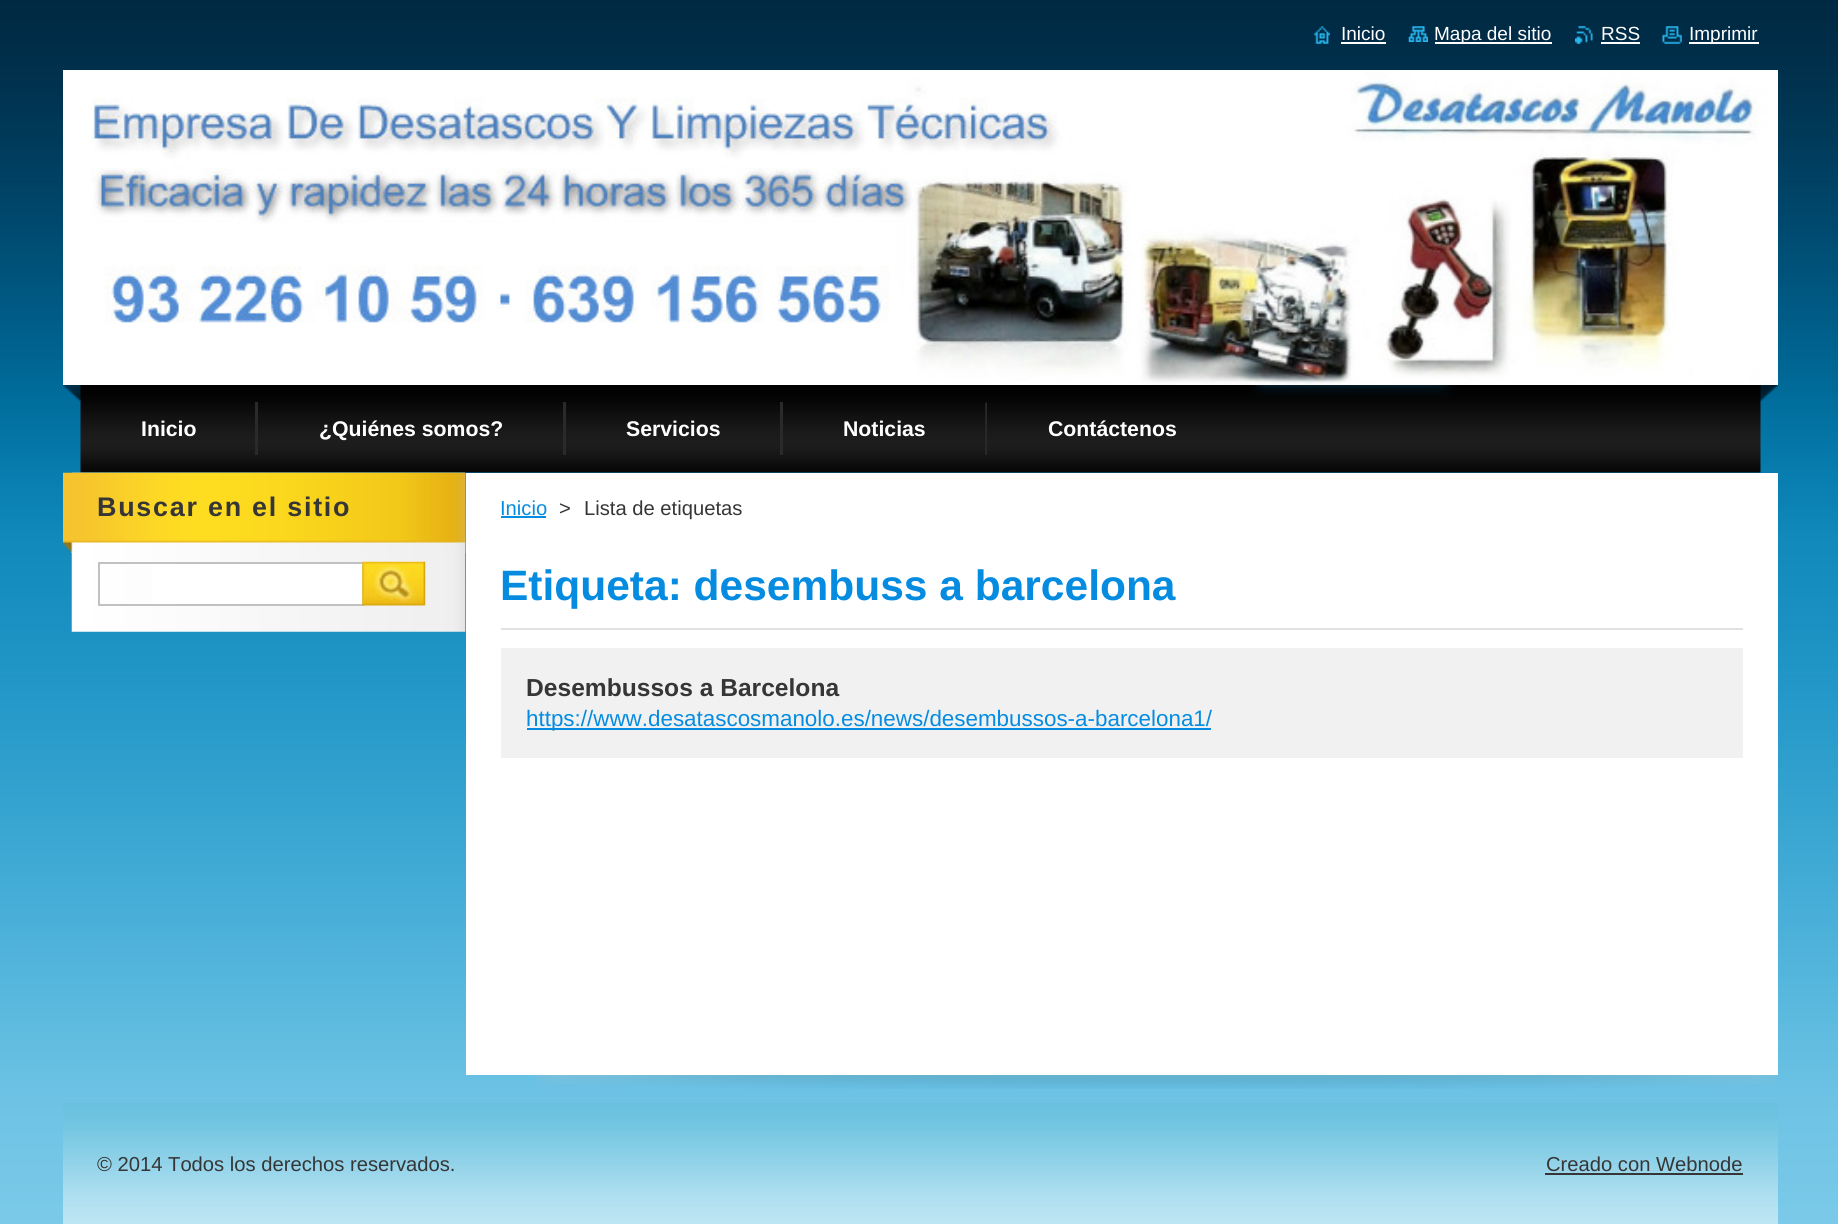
#include <cairo.h>
#include <math.h>
#include <stddef.h>


static void ink(cairo_t *ctx, unsigned color) {
    cairo_set_source_rgb(ctx, (color >> 16) / 255.0, (color >> 8 & 255) / 255.0, (color & 255) / 255.0);
}

static void write_spaced(cairo_t *ctx, double x, double y, const char *s, double letter, double word) {
    cairo_move_to(ctx, x, y);
    while (*s) {
        char ch[5] = {0};
        int n = 0;
        do ch[n++] = *s++; while ((*s & 0xC0) == 0x80);
        cairo_show_text(ctx, ch);
        cairo_rel_move_to(ctx, letter + word * (*ch == ' '), 0);
    }
}

static void paste(cairo_t *ctx, const char *path, double x, double y, double w, double h) {
    cairo_surface_t *image = cairo_image_surface_create_from_png(path);
    cairo_save(ctx);
    cairo_set_source_surface(ctx, image, x, y);
    cairo_rectangle(ctx, x, y, w, h);
    cairo_fill(ctx);
    cairo_restore(ctx);
    cairo_surface_destroy(image);
}

int main(void) {
    cairo_surface_t *surface = cairo_image_surface_create(CAIRO_FORMAT_RGB24, 1838, 1224);
    cairo_t *ctx = cairo_create(surface);
    cairo_font_options_t *options = cairo_font_options_create();
    cairo_font_options_set_hint_metrics(options, CAIRO_HINT_METRICS_OFF);
    cairo_font_options_set_hint_style(options, CAIRO_HINT_STYLE_NONE);
    cairo_set_font_options(ctx, options);
    cairo_set_miter_limit(ctx, 4);
    ink(ctx, 0xFFFFFF);
    cairo_paint(ctx);
    paste(ctx, "media/1.png", 0, 0, 1838, 1224);
    paste(ctx, "media/2.png", 1314, 26, 16, 18);
    cairo_select_font_face(ctx, "Liberation Sans", CAIRO_FONT_SLANT_NORMAL, CAIRO_FONT_WEIGHT_NORMAL);
    cairo_set_font_size(ctx, 19);
    ink(ctx, 0xFFFFFF);
    cairo_move_to(ctx, 1341, 40);
    cairo_show_text(ctx, "Inicio");
    cairo_rectangle(ctx, 1341, 42, 45, 2);
    cairo_fill(ctx);
    paste(ctx, "media/3.png", 1408, 26, 20, 16);
    cairo_rectangle(ctx, 1435, 42, 117, 2);
    cairo_fill(ctx);
    cairo_move_to(ctx, 1434, 40);
    cairo_show_text(ctx, "Mapa del sitio");
    paste(ctx, "media/4.png", 1575, 26, 18, 18);
    cairo_move_to(ctx, 1601, 40);
    cairo_show_text(ctx, "RSS");
    cairo_rectangle(ctx, 1601, 42, 39, 2);
    cairo_fill(ctx);
    paste(ctx, "media/5.png", 1662, 26, 20, 18);
    cairo_rectangle(ctx, 1689, 42, 70, 2);
    cairo_fill(ctx);
    cairo_move_to(ctx, 1689, 40);
    cairo_show_text(ctx, "Imprimir");
    paste(ctx, "media/6.png", 63, 70, 1715, 315);
    paste(ctx, "media/7.png", 63, 385, 1715, 88);
    ink(ctx, 0x2A2A2A);
    cairo_rectangle(ctx, 255, 402, 3, 53);
    cairo_fill(ctx);
    cairo_select_font_face(ctx, "Liberation Sans", CAIRO_FONT_SLANT_NORMAL, CAIRO_FONT_WEIGHT_BOLD);
    cairo_set_font_size(ctx, 21.25);
    ink(ctx, 0xFFFFFF);
    cairo_move_to(ctx, 141, 436);
    cairo_show_text(ctx, "Inicio");
    ink(ctx, 0x2A2A2A);
    cairo_rectangle(ctx, 563, 402, 3, 53);
    cairo_fill(ctx);
    ink(ctx, 0xFFFFFF);
    cairo_move_to(ctx, 319, 436);
    cairo_show_text(ctx, "¿Quiénes somos?");
    ink(ctx, 0x2A2A2A);
    cairo_rectangle(ctx, 780, 402, 3, 53);
    cairo_fill(ctx);
    ink(ctx, 0xFFFFFF);
    cairo_move_to(ctx, 626, 436);
    cairo_show_text(ctx, "Servicios");
    paste(ctx, "media/8.png", 985, 402, 2, 53);
    cairo_move_to(ctx, 843, 436);
    cairo_show_text(ctx, "Noticias");
    cairo_move_to(ctx, 1048, 436);
    cairo_show_text(ctx, "Contáctenos");
    paste(ctx, "media/9.png", 71, 472, 395, 160);
    paste(ctx, "media/10.png", 63, 472, 403, 81);
    cairo_set_font_size(ctx, 26.9);
    ink(ctx, 0x363636);
    write_spaced(ctx, 97, 516, "Buscar en el sitio", 1.75, 0);
    ink(ctx, 0xFFFFFF);
    cairo_rectangle(ctx, 152, 564, 210, 40);
    cairo_fill(ctx);
    cairo_rectangle(ctx, 99, 563, 264, 42);
    ink(ctx, 0xC1C1C1);
    cairo_stroke(ctx);
    paste(ctx, "media/11.png", 362, 561, 64, 45);
    paste(ctx, "media/12.png", 535, 1075, 1243, 14);
    ink(ctx, 0xFFFFFF);
    cairo_rectangle(ctx, 466, 473, 1312, 602);
    cairo_fill(ctx);
    cairo_select_font_face(ctx, "Liberation Sans", CAIRO_FONT_SLANT_NORMAL, CAIRO_FONT_WEIGHT_NORMAL);
    cairo_set_font_size(ctx, 20.2);
    ink(ctx, 0x058CE1);
    cairo_move_to(ctx, 500, 515);
    cairo_show_text(ctx, "Inicio");
    cairo_rectangle(ctx, 501, 516, 45, 2);
    cairo_fill(ctx);
    ink(ctx, 0x363636);
    cairo_move_to(ctx, 559, 515);
    cairo_show_text(ctx, ">");
    cairo_move_to(ctx, 584, 515);
    cairo_show_text(ctx, "Lista de etiquetas");
    ink(ctx, 0xE1E1E1);
    cairo_rectangle(ctx, 501, 628, 1242, 2);
    cairo_fill(ctx);
    cairo_select_font_face(ctx, "Liberation Sans", CAIRO_FONT_SLANT_NORMAL, CAIRO_FONT_WEIGHT_BOLD);
    cairo_set_font_size(ctx, 42.5);
    ink(ctx, 0x058CE1);
    cairo_move_to(ctx, 500, 600);
    cairo_show_text(ctx, "Etiqueta: desembuss a barcelona");
    ink(ctx, 0xF1F1F1);
    cairo_rectangle(ctx, 501, 648, 1242, 110);
    cairo_fill(ctx);
    cairo_set_font_size(ctx, 24.6);
    ink(ctx, 0x363636);
    cairo_move_to(ctx, 526, 696);
    cairo_show_text(ctx, "Desembussos a Barcelona");
    ink(ctx, 0x058CE1);
    cairo_rectangle(ctx, 527, 728, 684, 2);
    cairo_fill(ctx);
    cairo_select_font_face(ctx, "Liberation Sans", CAIRO_FONT_SLANT_NORMAL, CAIRO_FONT_WEIGHT_NORMAL);
    cairo_set_font_size(ctx, 22.4);
    cairo_move_to(ctx, 526, 726);
    cairo_show_text(ctx, "https://www.desatascosmanolo.es/news/desembussos-a-barcelona1/");
    paste(ctx, "media/13.png", 63, 1103, 1715, 121);
    cairo_set_font_size(ctx, 20.2);
    ink(ctx, 0x363636);
    cairo_move_to(ctx, 97, 1171);
    cairo_show_text(ctx, "© 2014 Todos los derechos reservados.");
    cairo_move_to(ctx, 1546, 1171);
    cairo_show_text(ctx, "Creado con Webnode");
    cairo_rectangle(ctx, 1545, 1173, 198, 2);
    cairo_fill(ctx);
    cairo_surface_write_to_png(surface, "image.png");
    cairo_font_options_destroy(options);
    cairo_destroy(ctx);
    cairo_surface_destroy(surface);
    return 0;
}
